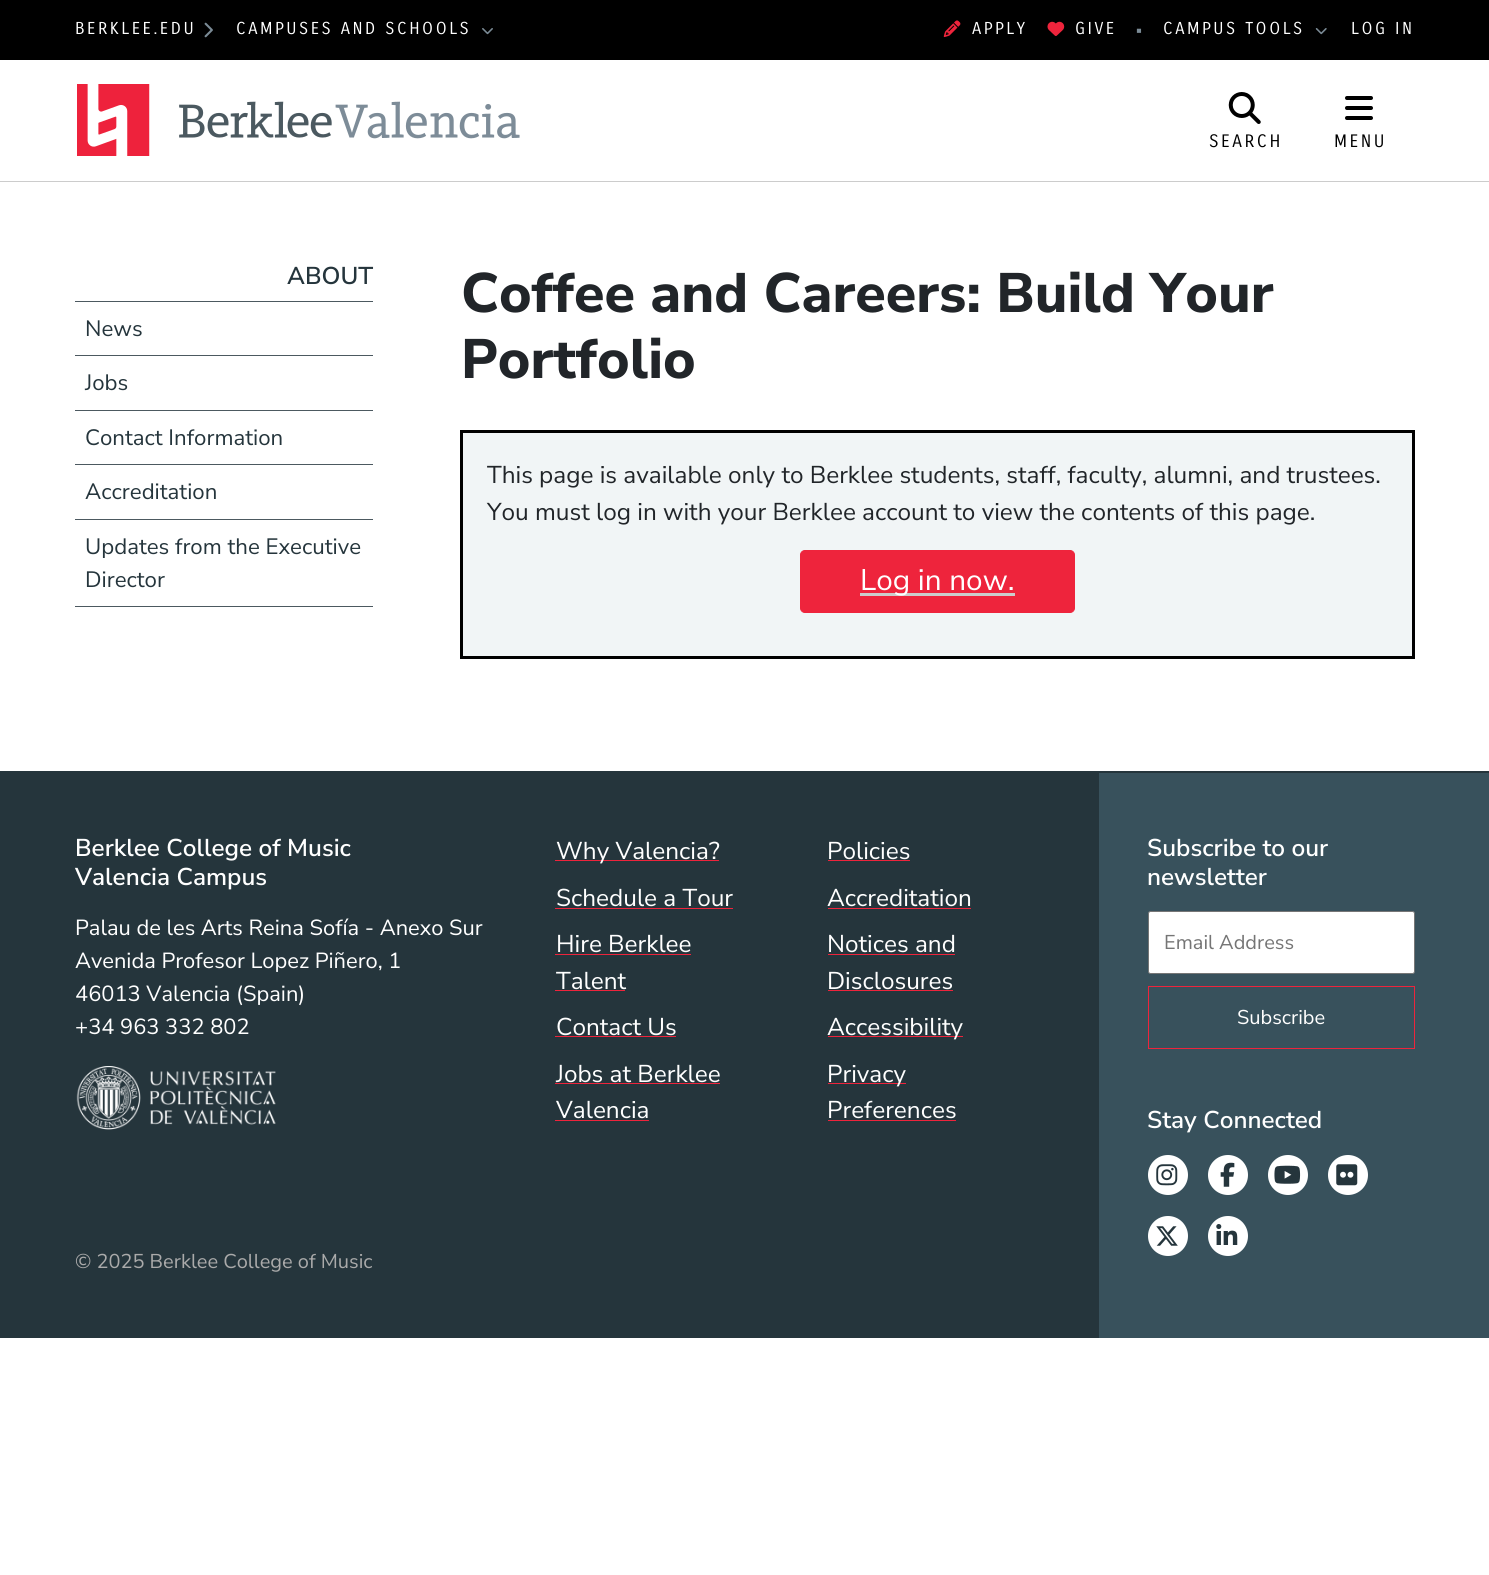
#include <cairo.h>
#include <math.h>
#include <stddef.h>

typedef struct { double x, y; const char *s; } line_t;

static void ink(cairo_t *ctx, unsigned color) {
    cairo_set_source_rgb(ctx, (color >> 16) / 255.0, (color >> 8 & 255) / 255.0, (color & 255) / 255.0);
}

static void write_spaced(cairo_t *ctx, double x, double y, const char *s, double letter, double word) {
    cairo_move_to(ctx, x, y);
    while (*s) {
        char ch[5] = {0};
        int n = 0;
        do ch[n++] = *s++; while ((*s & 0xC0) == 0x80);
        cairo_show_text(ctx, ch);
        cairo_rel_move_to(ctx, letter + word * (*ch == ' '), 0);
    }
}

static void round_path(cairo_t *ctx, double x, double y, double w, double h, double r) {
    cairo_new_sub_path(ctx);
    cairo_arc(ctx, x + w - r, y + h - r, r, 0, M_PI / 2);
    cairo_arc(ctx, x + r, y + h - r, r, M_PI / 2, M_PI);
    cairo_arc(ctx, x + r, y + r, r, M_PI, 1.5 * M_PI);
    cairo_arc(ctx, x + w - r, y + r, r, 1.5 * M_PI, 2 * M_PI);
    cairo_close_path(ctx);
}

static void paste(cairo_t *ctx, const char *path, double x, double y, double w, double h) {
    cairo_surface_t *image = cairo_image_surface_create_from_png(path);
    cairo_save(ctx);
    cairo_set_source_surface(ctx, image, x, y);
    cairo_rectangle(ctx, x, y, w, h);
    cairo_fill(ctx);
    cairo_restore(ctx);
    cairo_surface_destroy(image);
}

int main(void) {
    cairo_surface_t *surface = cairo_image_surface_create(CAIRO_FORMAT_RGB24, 1489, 1575);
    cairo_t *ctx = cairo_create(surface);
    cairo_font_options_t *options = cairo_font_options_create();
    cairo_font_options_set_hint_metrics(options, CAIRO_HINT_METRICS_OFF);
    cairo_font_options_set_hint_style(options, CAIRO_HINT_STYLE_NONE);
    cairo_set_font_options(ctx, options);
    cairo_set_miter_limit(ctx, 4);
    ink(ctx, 0xFFFFFF);
    cairo_paint(ctx);
    ink(ctx, 0x000000);
    cairo_rectangle(ctx, 0, 0, 1489, 60);
    cairo_fill(ctx);
    cairo_select_font_face(ctx, "Carrois Gothic", CAIRO_FONT_SLANT_NORMAL, CAIRO_FONT_WEIGHT_NORMAL);
    cairo_set_font_size(ctx, 16.75);
    ink(ctx, 0xFFFFFF);
    write_spaced(ctx, 75, 34, "BERKLEE.EDU", 2.5, 0);
    paste(ctx, "media/1.png", 204, 22, 9, 16);
    write_spaced(ctx, 236, 34, "CAMPUSES AND SCHOOLS", 2.5, 0);
    paste(ctx, "media/2.png", 482, 28, 11, 7);
    paste(ctx, "media/3.png", 943, 20, 18, 18);
    write_spaced(ctx, 972, 34, "APPLY", 2.5, 0);
    paste(ctx, "media/4.png", 1047, 21, 18, 15);
    write_spaced(ctx, 1075, 34, "GIVE", 2.5, 0);
    cairo_select_font_face(ctx, "Liberation Sans", CAIRO_FONT_SLANT_NORMAL, CAIRO_FONT_WEIGHT_NORMAL);
    ink(ctx, 0x7B8B96);
    cairo_move_to(ctx, 1136, 36);
    cairo_show_text(ctx, "▪");
    cairo_select_font_face(ctx, "Carrois Gothic", CAIRO_FONT_SLANT_NORMAL, CAIRO_FONT_WEIGHT_NORMAL);
    ink(ctx, 0xFFFFFF);
    write_spaced(ctx, 1163, 34, "CAMPUS TOOLS", 2.5, 0);
    paste(ctx, "media/5.png", 1315, 28, 12, 7);
    write_spaced(ctx, 1351, 34, "LOG IN", 2.5, 0);
    ink(ctx, 0xCCCCCC);
    cairo_rectangle(ctx, 0, 181, 1489, 1);
    cairo_fill(ctx);
    paste(ctx, "media/6.png", 77, 84, 443, 72);
    paste(ctx, "media/7.png", 1228, 92, 33, 32);
    cairo_set_font_size(ctx, 17.5);
    ink(ctx, 0x000000);
    write_spaced(ctx, 1209, 147, "SEARCH", 2.5, 0);
    paste(ctx, "media/8.png", 1345, 96, 28, 24);
    write_spaced(ctx, 1334, 147, "MENU", 2.5, 0);
    ink(ctx, 0x4C5960);
    cairo_rectangle(ctx, 75, 301, 298, 1);
    cairo_fill(ctx);
    cairo_select_font_face(ctx, "Nunito Sans ExtraLight", CAIRO_FONT_SLANT_NORMAL, CAIRO_FONT_WEIGHT_NORMAL);
    cairo_set_font_size(ctx, 24.35);
    ink(ctx, 0x25353C);
    cairo_move_to(ctx, 287, 284);
    cairo_show_text(ctx, "ABOUT");
    ink(ctx, 0x4C5960);
    cairo_rectangle(ctx, 75, 355, 298, 1);
    cairo_fill(ctx);
    cairo_select_font_face(ctx, "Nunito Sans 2 ExtraLight", CAIRO_FONT_SLANT_NORMAL, CAIRO_FONT_WEIGHT_NORMAL);
    cairo_set_font_size(ctx, 22.25);
    ink(ctx, 0x25353C);
    cairo_move_to(ctx, 85, 336);
    cairo_show_text(ctx, "News");
    ink(ctx, 0x4C5960);
    cairo_rectangle(ctx, 75, 410, 298, 1);
    cairo_fill(ctx);
    ink(ctx, 0x25353C);
    cairo_move_to(ctx, 85, 390);
    cairo_show_text(ctx, "Jobs");
    ink(ctx, 0x4C5960);
    cairo_rectangle(ctx, 75, 464, 298, 1);
    cairo_fill(ctx);
    ink(ctx, 0x25353C);
    cairo_move_to(ctx, 85, 445);
    cairo_show_text(ctx, "Contact Information");
    ink(ctx, 0x4C5960);
    cairo_rectangle(ctx, 75, 519, 298, 1);
    cairo_fill(ctx);
    ink(ctx, 0x25353C);
    cairo_move_to(ctx, 85, 499);
    cairo_show_text(ctx, "Accreditation");
    ink(ctx, 0x4C5960);
    cairo_rectangle(ctx, 75, 606, 298, 1);
    cairo_fill(ctx);
    ink(ctx, 0x25353C);
    cairo_move_to(ctx, 85, 554);
    cairo_show_text(ctx, "Updates from the Executive");
    cairo_move_to(ctx, 85, 587);
    cairo_show_text(ctx, "Director");
    cairo_select_font_face(ctx, "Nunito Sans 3 ExtraLight", CAIRO_FONT_SLANT_NORMAL, CAIRO_FONT_WEIGHT_NORMAL);
    cairo_set_font_size(ctx, 55.5);
    ink(ctx, 0x212529);
    cairo_move_to(ctx, 461, 312);
    cairo_show_text(ctx, "Coffee and Careers: Build Your");
    cairo_move_to(ctx, 461, 378);
    cairo_show_text(ctx, "Portfolio");
    ink(ctx, 0xF1F5F6);
    cairo_rectangle(ctx, 461.5, 431.5, 952, 226);
    cairo_fill_preserve(ctx);
    ink(ctx, 0x000000);
    cairo_set_line_width(ctx, 3);
    cairo_stroke(ctx);
    cairo_select_font_face(ctx, "Nunito Sans 2 ExtraLight", CAIRO_FONT_SLANT_NORMAL, CAIRO_FONT_WEIGHT_NORMAL);
    cairo_set_font_size(ctx, 24.35);
    ink(ctx, 0x212529);
    cairo_move_to(ctx, 487, 483);
    cairo_show_text(ctx, "This page is available only to Berklee students, staff, faculty, alumni, and trustees.");
    cairo_move_to(ctx, 487, 520);
    cairo_show_text(ctx, "You must log in with your Berklee account to view the contents of this page.");
    ink(ctx, 0xEE243C);
    round_path(ctx, 800.5, 550.5, 274, 62, 4.5);
    cairo_fill_preserve(ctx);
    cairo_set_line_width(ctx, 1);
    cairo_stroke(ctx);
    ink(ctx, 0xCCCCCC);
    cairo_rectangle(ctx, 860, 593, 155, 3);
    cairo_fill(ctx);
    cairo_set_font_size(ctx, 29.75);
    ink(ctx, 0xFFFFFF);
    cairo_move_to(ctx, 860, 590);
    cairo_show_text(ctx, "Log in now.");
    ink(ctx, 0x25353C);
    cairo_rectangle(ctx, 0, 771, 1489, 567);
    cairo_fill(ctx);
    cairo_select_font_face(ctx, "Nunito Sans ExtraLight", CAIRO_FONT_SLANT_NORMAL, CAIRO_FONT_WEIGHT_NORMAL);
    cairo_set_font_size(ctx, 24.35);
    ink(ctx, 0xFFFFFF);
    cairo_move_to(ctx, 75, 856);
    cairo_show_text(ctx, "Berklee College of Music");
    cairo_move_to(ctx, 75, 885);
    cairo_show_text(ctx, "Valencia Campus");
    cairo_select_font_face(ctx, "Nunito Sans 2 ExtraLight", CAIRO_FONT_SLANT_NORMAL, CAIRO_FONT_WEIGHT_NORMAL);
    cairo_set_font_size(ctx, 21.9);
    {
        static const line_t items[] = {
            {75, 935, "Palau de les Arts Reina Sofía - Anexo Sur"},
            {75, 968, "Avenida Profesor Lopez Piñero, 1"},
            {75, 1001, "46013 Valencia (Spain)"},
            {75, 1034, "+34 963 332 802"},
        };
        for (size_t i = 0; i < sizeof items / sizeof *items; i++) {
            cairo_move_to(ctx, items[i].x, items[i].y);
            cairo_show_text(ctx, items[i].s);
        }
    }
    paste(ctx, "media/9.png", 76, 1066, 200, 64);
    cairo_set_font_size(ctx, 20);
    ink(ctx, 0xAAAAAA);
    cairo_move_to(ctx, 75, 1268);
    cairo_show_text(ctx, "© 2025 Berklee College of Music");
    ink(ctx, 0xEE243C);
    cairo_rectangle(ctx, 555, 860, 164, 1);
    cairo_fill(ctx);
    cairo_set_font_size(ctx, 24.35);
    ink(ctx, 0xFFFFFF);
    cairo_move_to(ctx, 556, 859);
    cairo_show_text(ctx, "Why Valencia?");
    cairo_move_to(ctx, 556, 906);
    cairo_show_text(ctx, "Schedule a Tour");
    ink(ctx, 0xEE243C);
    cairo_rectangle(ctx, 555, 908, 178, 1);
    cairo_fill(ctx);
    ink(ctx, 0xFFFFFF);
    cairo_move_to(ctx, 556, 952);
    cairo_show_text(ctx, "Hire Berklee");
    ink(ctx, 0xEE243C);
    cairo_rectangle(ctx, 555, 954, 136, 1);
    cairo_fill(ctx);
    ink(ctx, 0xFFFFFF);
    cairo_move_to(ctx, 556, 989);
    cairo_show_text(ctx, "Talent");
    ink(ctx, 0xEE243C);
    cairo_rectangle(ctx, 555, 990, 70, 1);
    cairo_fill(ctx);
    ink(ctx, 0xFFFFFF);
    cairo_move_to(ctx, 556, 1035);
    cairo_show_text(ctx, "Contact Us");
    ink(ctx, 0xEE243C);
    cairo_rectangle(ctx, 555, 1036, 121, 1);
    cairo_fill(ctx);
    ink(ctx, 0xFFFFFF);
    cairo_move_to(ctx, 556, 1082);
    cairo_show_text(ctx, "Jobs at Berklee");
    ink(ctx, 0xEE243C);
    cairo_rectangle(ctx, 555, 1083, 165, 1);
    cairo_fill(ctx);
    ink(ctx, 0xFFFFFF);
    cairo_move_to(ctx, 556, 1118);
    cairo_show_text(ctx, "Valencia");
    ink(ctx, 0xEE243C);
    cairo_rectangle(ctx, 555, 1120, 94, 1);
    cairo_fill(ctx);
    ink(ctx, 0xFFFFFF);
    cairo_move_to(ctx, 827, 859);
    cairo_show_text(ctx, "Policies");
    ink(ctx, 0xEE243C);
    cairo_rectangle(ctx, 828, 860, 82, 1);
    cairo_fill(ctx);
    ink(ctx, 0xFFFFFF);
    cairo_move_to(ctx, 827, 906);
    cairo_show_text(ctx, "Accreditation");
    ink(ctx, 0xEE243C);
    cairo_rectangle(ctx, 828, 908, 143, 1);
    cairo_fill(ctx);
    ink(ctx, 0xFFFFFF);
    cairo_move_to(ctx, 827, 952);
    cairo_show_text(ctx, "Notices and");
    ink(ctx, 0xEE243C);
    cairo_rectangle(ctx, 828, 954, 127, 1);
    cairo_fill(ctx);
    ink(ctx, 0xFFFFFF);
    cairo_move_to(ctx, 827, 989);
    cairo_show_text(ctx, "Disclosures");
    ink(ctx, 0xEE243C);
    cairo_rectangle(ctx, 828, 990, 125, 1);
    cairo_fill(ctx);
    cairo_rectangle(ctx, 828, 1036, 135, 1);
    cairo_fill(ctx);
    ink(ctx, 0xFFFFFF);
    cairo_move_to(ctx, 827, 1035);
    cairo_show_text(ctx, "Accessibility");
    ink(ctx, 0xEE243C);
    cairo_rectangle(ctx, 828, 1083, 78, 1);
    cairo_fill(ctx);
    ink(ctx, 0xFFFFFF);
    cairo_move_to(ctx, 827, 1082);
    cairo_show_text(ctx, "Privacy");
    cairo_move_to(ctx, 827, 1118);
    cairo_show_text(ctx, "Preferences");
    ink(ctx, 0xEE243C);
    cairo_rectangle(ctx, 828, 1120, 128, 1);
    cairo_fill(ctx);
    ink(ctx, 0x38515C);
    cairo_rectangle(ctx, 1099, 773, 390, 565);
    cairo_fill(ctx);
    cairo_select_font_face(ctx, "Nunito Sans ExtraLight", CAIRO_FONT_SLANT_NORMAL, CAIRO_FONT_WEIGHT_NORMAL);
    ink(ctx, 0xFFFFFF);
    cairo_move_to(ctx, 1147, 856);
    cairo_show_text(ctx, "Subscribe to our");
    cairo_move_to(ctx, 1147, 885);
    cairo_show_text(ctx, "newsletter");
    round_path(ctx, 1148.5, 911.5, 266, 62, 2);
    cairo_fill_preserve(ctx);
    ink(ctx, 0x767676);
    cairo_stroke(ctx);
    cairo_select_font_face(ctx, "Nunito Sans 2 ExtraLight", CAIRO_FONT_SLANT_NORMAL, CAIRO_FONT_WEIGHT_NORMAL);
    cairo_set_font_size(ctx, 20);
    ink(ctx, 0x757575);
    cairo_move_to(ctx, 1164, 949);
    cairo_show_text(ctx, "Email Address");
    cairo_rectangle(ctx, 1148.5, 986.5, 266, 62);
    ink(ctx, 0xEE243C);
    cairo_stroke(ctx);
    ink(ctx, 0xFFFFFF);
    cairo_move_to(ctx, 1237, 1024);
    cairo_show_text(ctx, "Subscribe");
    cairo_select_font_face(ctx, "Nunito Sans ExtraLight", CAIRO_FONT_SLANT_NORMAL, CAIRO_FONT_WEIGHT_NORMAL);
    cairo_set_font_size(ctx, 24.35);
    cairo_move_to(ctx, 1147, 1128);
    cairo_show_text(ctx, "Stay Connected");
    cairo_new_path(ctx);
    cairo_arc(ctx, 1168, 1175, 20, 0, 2 * M_PI);
    cairo_fill(ctx);
    paste(ctx, "media/10.png", 1156, 1164, 22, 22);
    cairo_arc(ctx, 1228, 1175, 20, 0, 2 * M_PI);
    cairo_fill(ctx);
    paste(ctx, "media/11.png", 1220, 1162, 15, 25);
    cairo_arc(ctx, 1288, 1175, 20, 0, 2 * M_PI);
    cairo_fill(ctx);
    paste(ctx, "media/12.png", 1274, 1165, 27, 19);
    cairo_arc(ctx, 1348, 1175, 20, 0, 2 * M_PI);
    cairo_fill(ctx);
    paste(ctx, "media/13.png", 1336, 1164, 22, 22);
    cairo_arc(ctx, 1168, 1236, 20, 0, 2 * M_PI);
    cairo_fill(ctx);
    paste(ctx, "media/14.png", 1156, 1226, 22, 20);
    cairo_arc(ctx, 1228, 1236, 20, 0, 2 * M_PI);
    cairo_fill(ctx);
    paste(ctx, "media/15.png", 1216, 1224, 22, 21);
    cairo_surface_write_to_png(surface, "image.png");
    cairo_font_options_destroy(options);
    cairo_destroy(ctx);
    cairo_surface_destroy(surface);
    return 0;
}
